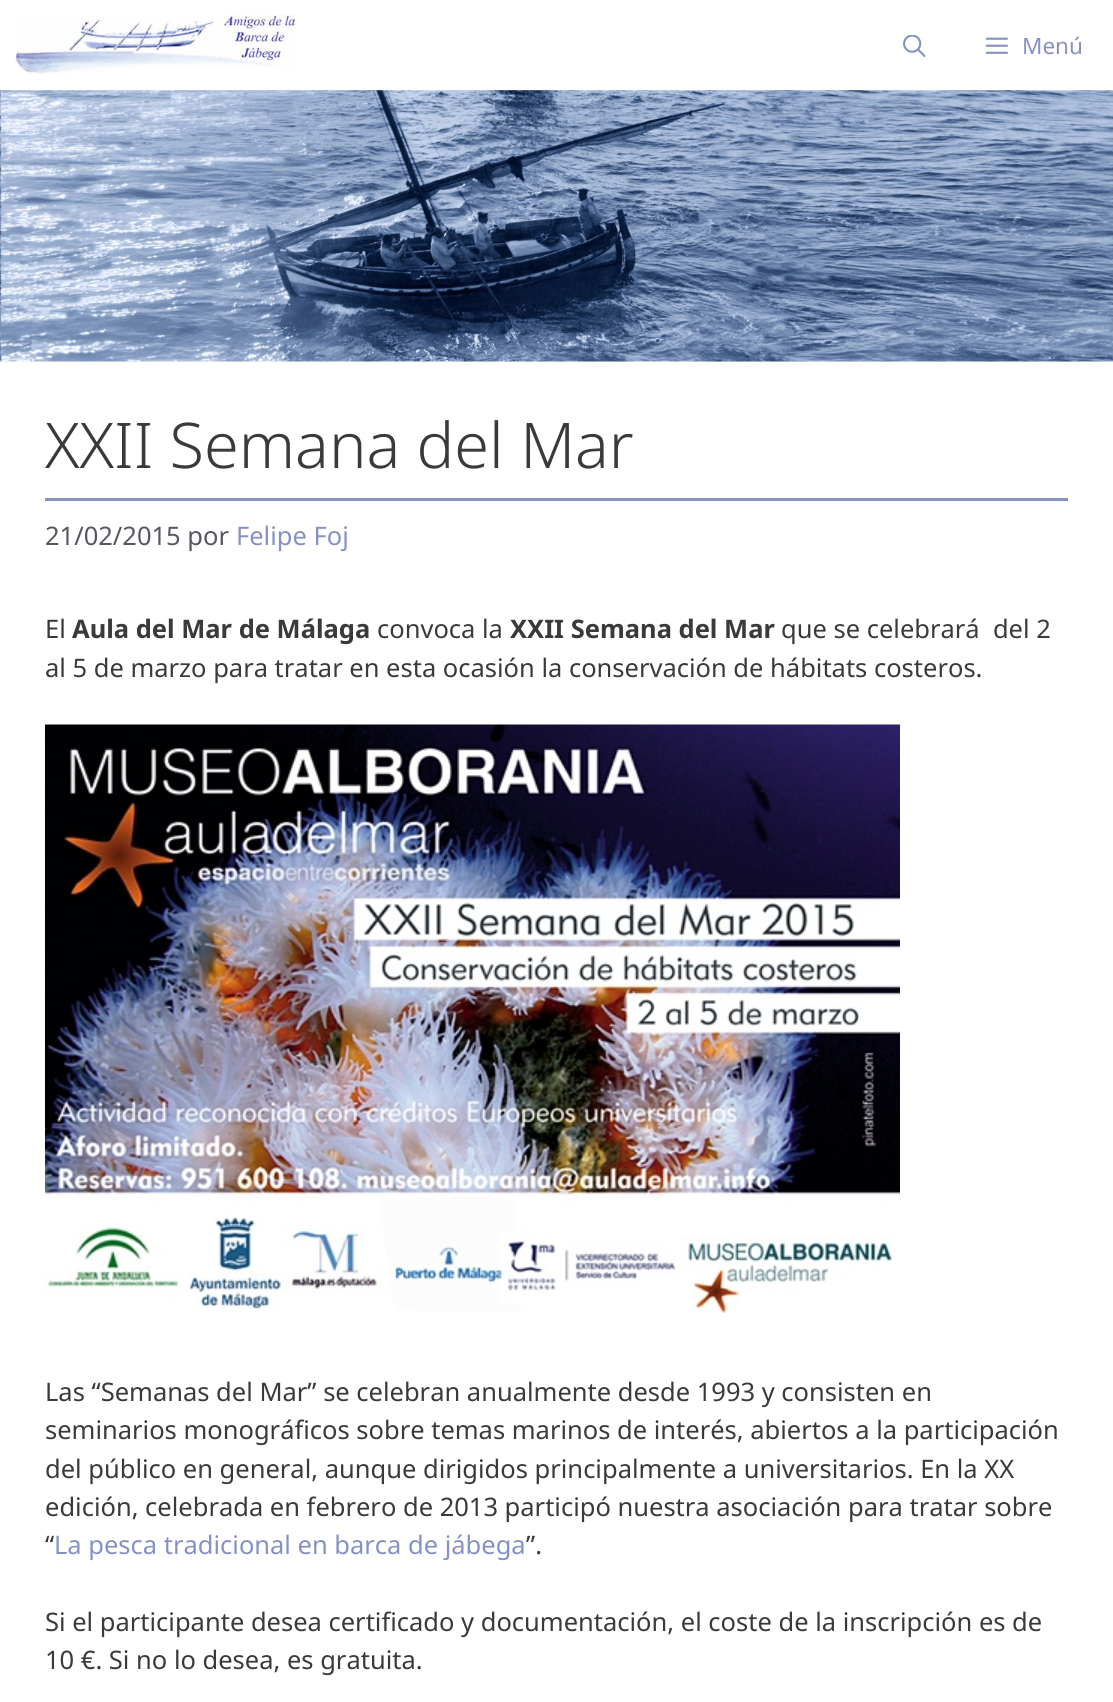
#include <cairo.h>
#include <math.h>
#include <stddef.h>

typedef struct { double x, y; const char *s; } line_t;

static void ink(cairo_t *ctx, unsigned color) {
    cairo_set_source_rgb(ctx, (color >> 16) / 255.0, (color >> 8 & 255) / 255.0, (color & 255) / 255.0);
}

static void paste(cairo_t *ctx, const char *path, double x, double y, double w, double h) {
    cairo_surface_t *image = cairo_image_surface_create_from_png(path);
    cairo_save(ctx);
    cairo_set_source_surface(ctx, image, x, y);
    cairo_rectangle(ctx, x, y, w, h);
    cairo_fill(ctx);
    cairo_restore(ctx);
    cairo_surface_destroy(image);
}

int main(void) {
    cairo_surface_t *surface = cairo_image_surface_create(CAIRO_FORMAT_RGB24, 1113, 1702);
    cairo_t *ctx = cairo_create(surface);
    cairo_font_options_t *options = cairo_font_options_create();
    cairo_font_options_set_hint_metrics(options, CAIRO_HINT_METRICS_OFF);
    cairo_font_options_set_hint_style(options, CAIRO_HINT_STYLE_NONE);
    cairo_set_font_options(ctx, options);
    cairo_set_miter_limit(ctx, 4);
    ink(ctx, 0xFFFFFF);
    cairo_paint(ctx);
    paste(ctx, "media/1.png", 15, 15, 281, 60);
    paste(ctx, "media/2.png", 903, 35, 23, 22);
    paste(ctx, "media/3.png", 986, 37, 22, 17);
    cairo_select_font_face(ctx, "Noto Sans", CAIRO_FONT_SLANT_NORMAL, CAIRO_FONT_WEIGHT_NORMAL);
    cairo_set_font_size(ctx, 22.5);
    ink(ctx, 0x8591C5);
    cairo_move_to(ctx, 1022, 54);
    cairo_show_text(ctx, "Menú");
    paste(ctx, "media/4.png", 0, 90, 1113, 272);
    cairo_rectangle(ctx, 45, 498, 1023, 3);
    cairo_fill(ctx);
    cairo_select_font_face(ctx, "Noto Sans Light", CAIRO_FONT_SLANT_NORMAL, CAIRO_FONT_WEIGHT_NORMAL);
    cairo_set_font_size(ctx, 63);
    ink(ctx, 0x3A3A3A);
    cairo_move_to(ctx, 45, 468);
    cairo_show_text(ctx, "XXII Semana del Mar");
    cairo_select_font_face(ctx, "Noto Sans", CAIRO_FONT_SLANT_NORMAL, CAIRO_FONT_WEIGHT_NORMAL);
    cairo_set_font_size(ctx, 25.5);
    ink(ctx, 0x575760);
    cairo_move_to(ctx, 45, 545);
    cairo_show_text(ctx, "21/02/2015 por");
    ink(ctx, 0x8591C5);
    cairo_move_to(ctx, 236, 545);
    cairo_show_text(ctx, "Felipe Foj");
    ink(ctx, 0x3A3A3A);
    cairo_move_to(ctx, 45, 638);
    cairo_show_text(ctx, "El");
    cairo_select_font_face(ctx, "Noto Sans", CAIRO_FONT_SLANT_NORMAL, CAIRO_FONT_WEIGHT_BOLD);
    cairo_move_to(ctx, 72, 638);
    cairo_show_text(ctx, "Aula del Mar de Málaga");
    cairo_select_font_face(ctx, "Noto Sans", CAIRO_FONT_SLANT_NORMAL, CAIRO_FONT_WEIGHT_NORMAL);
    cairo_move_to(ctx, 377, 638);
    cairo_show_text(ctx, "convoca la");
    cairo_select_font_face(ctx, "Noto Sans", CAIRO_FONT_SLANT_NORMAL, CAIRO_FONT_WEIGHT_BOLD);
    cairo_move_to(ctx, 510, 638);
    cairo_show_text(ctx, "XXII Semana del Mar");
    cairo_select_font_face(ctx, "Noto Sans", CAIRO_FONT_SLANT_NORMAL, CAIRO_FONT_WEIGHT_NORMAL);
    cairo_move_to(ctx, 781, 638);
    cairo_show_text(ctx, "que se celebrará  del 2");
    cairo_move_to(ctx, 45, 677);
    cairo_show_text(ctx, "al 5 de marzo para tratar en esta ocasión la conservación de hábitats costeros.");
    paste(ctx, "media/5.png", 45, 724, 855, 590);
    {
        static const line_t items[] = {
            {45, 1401, "Las “Semanas del Mar” se celebran anualmente desde 1993 y consisten en"},
            {45, 1439, "seminarios monográficos sobre temas marinos de interés, abiertos a la participación"},
            {45, 1478, "del público en general, aunque dirigidos principalmente a universitarios. En la XX"},
            {45, 1516, "edición, celebrada en febrero de 2013 participó nuestra asociación para tratar sobre"},
            {45, 1554, "“"},
        };
        for (size_t i = 0; i < sizeof items / sizeof *items; i++) {
            cairo_move_to(ctx, items[i].x, items[i].y);
            cairo_show_text(ctx, items[i].s);
        }
    }
    ink(ctx, 0x8591C5);
    cairo_move_to(ctx, 54, 1554);
    cairo_show_text(ctx, "La pesca tradicional en barca de jábega");
    ink(ctx, 0x3A3A3A);
    {
        static const line_t items[] = {
            {526, 1554, "”."},
            {45, 1631, "Si el participante desea certificado y documentación, el coste de la inscripción es de"},
            {45, 1669, "10 €. Si no lo desea, es gratuita."},
        };
        for (size_t i = 0; i < sizeof items / sizeof *items; i++) {
            cairo_move_to(ctx, items[i].x, items[i].y);
            cairo_show_text(ctx, items[i].s);
        }
    }
    cairo_surface_write_to_png(surface, "image.png");
    cairo_font_options_destroy(options);
    cairo_destroy(ctx);
    cairo_surface_destroy(surface);
    return 0;
}
